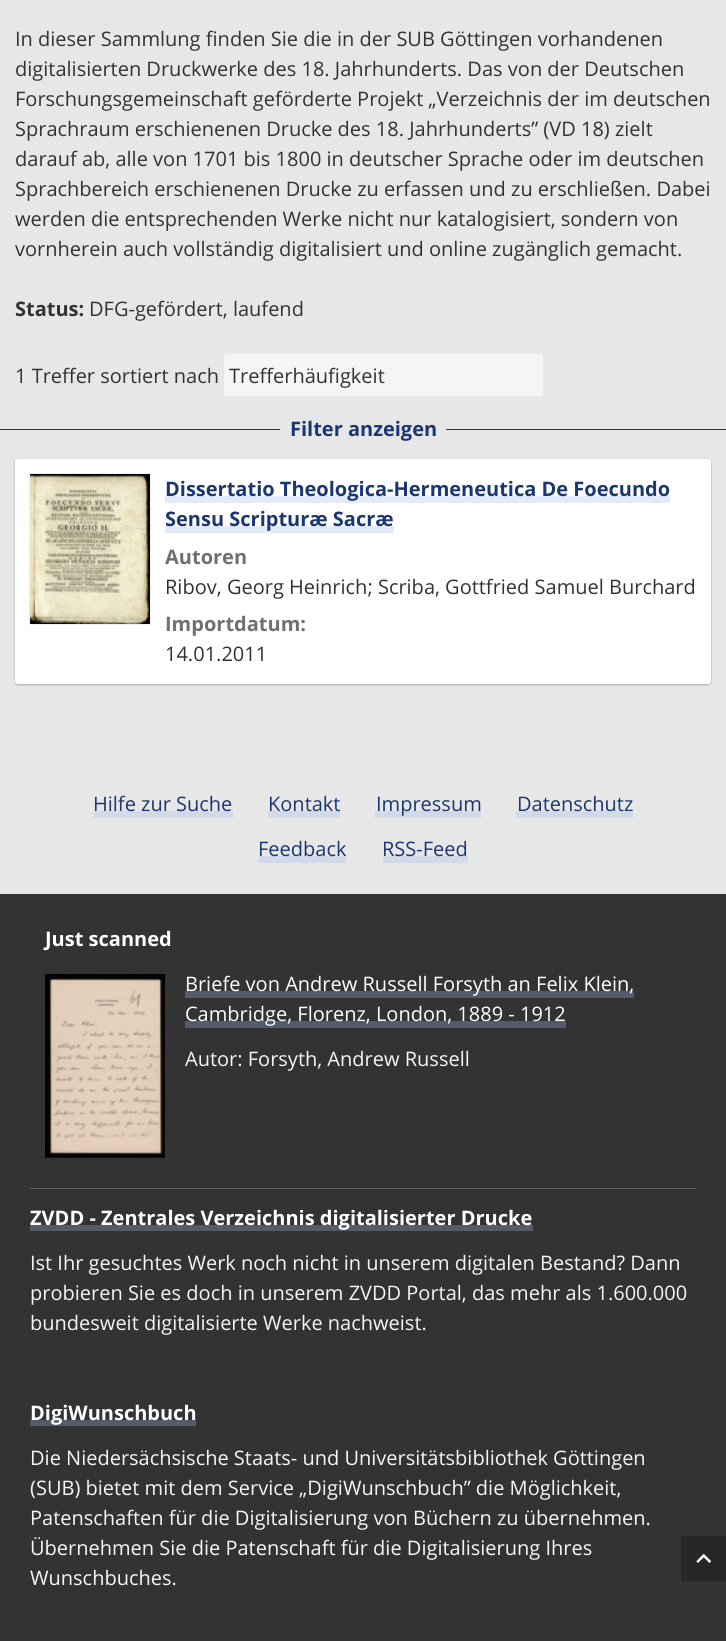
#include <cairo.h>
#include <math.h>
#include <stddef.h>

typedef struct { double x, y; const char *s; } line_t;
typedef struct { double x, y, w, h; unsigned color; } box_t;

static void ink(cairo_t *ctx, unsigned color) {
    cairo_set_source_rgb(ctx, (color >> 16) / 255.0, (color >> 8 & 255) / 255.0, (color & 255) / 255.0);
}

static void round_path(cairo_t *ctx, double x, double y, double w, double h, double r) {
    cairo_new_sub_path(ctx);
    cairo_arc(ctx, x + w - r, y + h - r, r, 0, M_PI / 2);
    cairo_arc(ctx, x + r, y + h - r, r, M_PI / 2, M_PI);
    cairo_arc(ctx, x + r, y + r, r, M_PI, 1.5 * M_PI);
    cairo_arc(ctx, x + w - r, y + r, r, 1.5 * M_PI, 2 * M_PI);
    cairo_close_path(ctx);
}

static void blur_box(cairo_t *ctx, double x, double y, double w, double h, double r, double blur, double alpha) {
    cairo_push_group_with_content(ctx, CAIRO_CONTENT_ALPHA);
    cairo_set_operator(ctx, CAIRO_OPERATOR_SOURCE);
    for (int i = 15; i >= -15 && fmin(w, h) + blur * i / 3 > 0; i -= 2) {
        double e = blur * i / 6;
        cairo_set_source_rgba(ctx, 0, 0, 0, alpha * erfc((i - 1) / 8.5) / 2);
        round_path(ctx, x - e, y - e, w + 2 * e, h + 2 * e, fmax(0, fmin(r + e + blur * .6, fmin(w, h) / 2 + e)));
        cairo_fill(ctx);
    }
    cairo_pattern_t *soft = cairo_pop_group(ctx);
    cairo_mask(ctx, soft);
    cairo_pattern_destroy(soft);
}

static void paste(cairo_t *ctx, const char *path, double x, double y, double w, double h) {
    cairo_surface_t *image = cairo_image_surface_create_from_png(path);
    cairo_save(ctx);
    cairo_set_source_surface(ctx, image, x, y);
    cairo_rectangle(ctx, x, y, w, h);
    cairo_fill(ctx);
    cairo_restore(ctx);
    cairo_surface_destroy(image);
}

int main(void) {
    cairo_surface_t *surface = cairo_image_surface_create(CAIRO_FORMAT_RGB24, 726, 1641);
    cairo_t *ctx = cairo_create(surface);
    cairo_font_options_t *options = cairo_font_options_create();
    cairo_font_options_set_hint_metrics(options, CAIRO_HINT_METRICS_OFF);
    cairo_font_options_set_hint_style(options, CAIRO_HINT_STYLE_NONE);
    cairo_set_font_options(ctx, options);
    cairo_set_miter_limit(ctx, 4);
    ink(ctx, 0xE7E7E7);
    cairo_paint(ctx);
    cairo_select_font_face(ctx, "Open Sans", CAIRO_FONT_SLANT_NORMAL, CAIRO_FONT_WEIGHT_NORMAL);
    cairo_set_font_size(ctx, 20);
    ink(ctx, 0x333333);
    {
        static const line_t items[] = {
            {15, 46, "In dieser Sammlung finden Sie die in der SUB Göttingen vorhandenen"},
            {15, 76, "digitalisierten Druckwerke des 18. Jahrhunderts. Das von der Deutschen"},
            {15, 106, "Forschungsgemeinschaft geförderte Projekt „Verzeichnis der im deutschen"},
            {15, 136, "Sprachraum erschienenen Drucke des 18. Jahrhunderts” (VD 18) zielt"},
            {15, 166, "darauf ab, alle von 1701 bis 1800 in deutscher Sprache oder im deutschen"},
            {15, 196, "Sprachbereich erschienenen Drucke zu erfassen und zu erschließen. Dabei"},
            {15, 226, "werden die entsprechenden Werke nicht nur katalogisiert, sondern von"},
            {15, 256, "vornherein auch vollständig digitalisiert und online zugänglich gemacht."},
        };
        for (size_t i = 0; i < sizeof items / sizeof *items; i++) {
            cairo_move_to(ctx, items[i].x, items[i].y);
            cairo_show_text(ctx, items[i].s);
        }
    }
    cairo_select_font_face(ctx, "Open Sans", CAIRO_FONT_SLANT_NORMAL, CAIRO_FONT_WEIGHT_BOLD);
    cairo_move_to(ctx, 15, 316);
    cairo_show_text(ctx, "Status:");
    cairo_select_font_face(ctx, "Open Sans", CAIRO_FONT_SLANT_NORMAL, CAIRO_FONT_WEIGHT_NORMAL);
    cairo_move_to(ctx, 89, 316);
    cairo_show_text(ctx, "DFG-gefördert, laufend");
    cairo_move_to(ctx, 15, 383);
    cairo_show_text(ctx, "1 Treffer sortiert nach");
    ink(ctx, 0xF5F5F5);
    round_path(ctx, 224, 354, 319, 42, 2.5);
    cairo_fill(ctx);
    ink(ctx, 0x333333);
    cairo_move_to(ctx, 229, 383);
    cairo_show_text(ctx, "Trefferhäufigkeit");
    ink(ctx, 0x1A3771);
    cairo_rectangle(ctx, 0, 429, 726, 1);
    cairo_fill(ctx);
    ink(ctx, 0xE7E7E7);
    round_path(ctx, 280, 414, 166, 30, 2.5);
    cairo_fill(ctx);
    cairo_select_font_face(ctx, "Open Sans", CAIRO_FONT_SLANT_NORMAL, CAIRO_FONT_WEIGHT_BOLD);
    ink(ctx, 0x1A3771);
    cairo_move_to(ctx, 290, 436);
    cairo_show_text(ctx, "Filter anzeigen");
    ink(ctx, 0x000000);
    blur_box(ctx, 15, 460, 696, 225, 2.5, 1, 0.24);
    blur_box(ctx, 15, 459, 696, 225, 2.5, 0.5, 0.08);
    ink(ctx, 0xFFFFFF);
    round_path(ctx, 15, 459, 696, 225, 2.5);
    cairo_fill(ctx);
    ink(ctx, 0x000000);
    blur_box(ctx, 30, 474, 120, 150, 0, 0.5, 0.24);
    paste(ctx, "media/1.png", 30, 474, 120, 150);
    ink(ctx, 0xE3EAF8);
    cairo_rectangle(ctx, 165, 496, 505, 7);
    cairo_fill(ctx);
    ink(ctx, 0x1A3771);
    cairo_move_to(ctx, 165, 496);
    cairo_show_text(ctx, "Dissertatio Theologica-Hermeneutica De Foecundo");
    ink(ctx, 0xE3EAF8);
    cairo_rectangle(ctx, 165, 526, 229, 7);
    cairo_fill(ctx);
    ink(ctx, 0x1A3771);
    cairo_move_to(ctx, 165, 526);
    cairo_show_text(ctx, "Sensu Scripturæ Sacræ");
    ink(ctx, 0x707070);
    cairo_move_to(ctx, 165, 564);
    cairo_show_text(ctx, "Autoren");
    cairo_select_font_face(ctx, "Open Sans", CAIRO_FONT_SLANT_NORMAL, CAIRO_FONT_WEIGHT_NORMAL);
    ink(ctx, 0x333333);
    cairo_move_to(ctx, 165, 594);
    cairo_show_text(ctx, "Ribov, Georg Heinrich; Scriba, Gottfried Samuel Burchard");
    cairo_select_font_face(ctx, "Open Sans", CAIRO_FONT_SLANT_NORMAL, CAIRO_FONT_WEIGHT_BOLD);
    ink(ctx, 0x707070);
    cairo_move_to(ctx, 165, 631);
    cairo_show_text(ctx, "Importdatum:");
    cairo_select_font_face(ctx, "Open Sans", CAIRO_FONT_SLANT_NORMAL, CAIRO_FONT_WEIGHT_NORMAL);
    ink(ctx, 0x333333);
    cairo_move_to(ctx, 165, 661);
    cairo_show_text(ctx, "14.01.2011");
    ink(ctx, 0xD2D9E8);
    cairo_rectangle(ctx, 94, 811, 139, 7);
    cairo_fill(ctx);
    ink(ctx, 0x1A3771);
    cairo_move_to(ctx, 93, 811);
    cairo_show_text(ctx, "Hilfe zur Suche");
    ink(ctx, 0xD2D9E8);
    cairo_rectangle(ctx, 268, 811, 72, 7);
    cairo_fill(ctx);
    ink(ctx, 0x1A3771);
    cairo_move_to(ctx, 268, 811);
    cairo_show_text(ctx, "Kontakt");
    ink(ctx, 0xD2D9E8);
    cairo_rectangle(ctx, 375, 811, 106, 7);
    cairo_fill(ctx);
    ink(ctx, 0x1A3771);
    cairo_move_to(ctx, 376, 811);
    cairo_show_text(ctx, "Impressum");
    ink(ctx, 0xD2D9E8);
    cairo_rectangle(ctx, 516, 811, 117, 7);
    cairo_fill(ctx);
    ink(ctx, 0x1A3771);
    cairo_move_to(ctx, 517, 811);
    cairo_show_text(ctx, "Datenschutz");
    ink(ctx, 0xD2D9E8);
    cairo_rectangle(ctx, 259, 856, 87, 7);
    cairo_fill(ctx);
    ink(ctx, 0x1A3771);
    cairo_move_to(ctx, 258, 856);
    cairo_show_text(ctx, "Feedback");
    ink(ctx, 0xD2D9E8);
    cairo_rectangle(ctx, 383, 856, 85, 7);
    cairo_fill(ctx);
    ink(ctx, 0x1A3771);
    cairo_move_to(ctx, 382, 856);
    cairo_show_text(ctx, "RSS-Feed");
    {
        static const box_t items[] = {
            {0, 894, 726, 747, 0x333333},
            {30, 1188, 666, 1, 0x5C5C5C},
            {30, 1186, 666, 1, 0x2E2E2E},
        };
        for (size_t i = 0; i < sizeof items / sizeof *items; i++) {
            ink(ctx, items[i].color);
            cairo_rectangle(ctx, items[i].x, items[i].y, items[i].w, items[i].h);
            cairo_fill(ctx);
        }
    }
    cairo_select_font_face(ctx, "Open Sans", CAIRO_FONT_SLANT_NORMAL, CAIRO_FONT_WEIGHT_BOLD);
    ink(ctx, 0xFFFFFF);
    cairo_move_to(ctx, 45, 946);
    cairo_show_text(ctx, "Just scanned");
    paste(ctx, "media/2.png", 45, 974, 120, 184);
    ink(ctx, 0x545B6A);
    cairo_rectangle(ctx, 185, 991, 449, 7);
    cairo_fill(ctx);
    cairo_select_font_face(ctx, "Open Sans", CAIRO_FONT_SLANT_NORMAL, CAIRO_FONT_WEIGHT_NORMAL);
    ink(ctx, 0xFFFFFF);
    cairo_move_to(ctx, 185, 991);
    cairo_show_text(ctx, "Briefe von Andrew Russell Forsyth an Felix Klein,");
    ink(ctx, 0x545B6A);
    cairo_rectangle(ctx, 185, 1021, 381, 7);
    cairo_fill(ctx);
    ink(ctx, 0xFFFFFF);
    cairo_move_to(ctx, 185, 1021);
    cairo_show_text(ctx, "Cambridge, Florenz, London, 1889 - 1912");
    ink(ctx, 0xF4F5F8);
    cairo_move_to(ctx, 185, 1066);
    cairo_show_text(ctx, "Autor: Forsyth, Andrew Russell");
    ink(ctx, 0x545B6A);
    cairo_rectangle(ctx, 30, 1225, 503, 6);
    cairo_fill(ctx);
    cairo_select_font_face(ctx, "Open Sans", CAIRO_FONT_SLANT_NORMAL, CAIRO_FONT_WEIGHT_BOLD);
    ink(ctx, 0xFFFFFF);
    cairo_move_to(ctx, 30, 1225);
    cairo_show_text(ctx, "ZVDD - Zentrales Verzeichnis digitalisierter Drucke");
    cairo_select_font_face(ctx, "Open Sans", CAIRO_FONT_SLANT_NORMAL, CAIRO_FONT_WEIGHT_NORMAL);
    ink(ctx, 0xF4F5F8);
    {
        static const line_t items[] = {
            {30, 1270, "Ist Ihr gesuchtes Werk noch nicht in unserem digitalen Bestand? Dann"},
            {30, 1300, "probieren Sie es doch in unserem ZVDD Portal, das mehr als 1.600.000"},
            {30, 1330, "bundesweit digitalisierte Werke nachweist."},
        };
        for (size_t i = 0; i < sizeof items / sizeof *items; i++) {
            cairo_move_to(ctx, items[i].x, items[i].y);
            cairo_show_text(ctx, items[i].s);
        }
    }
    ink(ctx, 0x545B6A);
    cairo_rectangle(ctx, 30, 1420, 166, 6);
    cairo_fill(ctx);
    cairo_select_font_face(ctx, "Open Sans", CAIRO_FONT_SLANT_NORMAL, CAIRO_FONT_WEIGHT_BOLD);
    ink(ctx, 0xFFFFFF);
    cairo_move_to(ctx, 30, 1420);
    cairo_show_text(ctx, "DigiWunschbuch");
    cairo_select_font_face(ctx, "Open Sans", CAIRO_FONT_SLANT_NORMAL, CAIRO_FONT_WEIGHT_NORMAL);
    ink(ctx, 0xF4F5F8);
    {
        static const line_t items[] = {
            {30, 1465, "Die Niedersächsische Staats- und Universitätsbibliothek Göttingen"},
            {30, 1495, "(SUB) bietet mit dem Service „DigiWunschbuch” die Möglichkeit,"},
            {30, 1525, "Patenschaften für die Digitalisierung von Büchern zu übernehmen."},
            {30, 1555, "Übernehmen Sie die Patenschaft für die Digitalisierung Ihres"},
            {30, 1585, "Wunschbuches."},
        };
        for (size_t i = 0; i < sizeof items / sizeof *items; i++) {
            cairo_move_to(ctx, items[i].x, items[i].y);
            cairo_show_text(ctx, items[i].s);
        }
    }
    ink(ctx, 0x272727);
    cairo_new_path(ctx);
    cairo_move_to(ctx, 683.5, 1536);
    cairo_line_to(ctx, 726, 1536);
    cairo_line_to(ctx, 726, 1581);
    cairo_line_to(ctx, 683.5, 1581);
    cairo_curve_to(ctx, 682, 1581, 681, 1580, 681, 1578.5);
    cairo_line_to(ctx, 681, 1538.5);
    cairo_curve_to(ctx, 681, 1537, 682, 1536, 683.5, 1536);
    cairo_close_path(ctx);
    cairo_fill(ctx);
    paste(ctx, "media/3.png", 696, 1553, 16, 10);
    cairo_surface_write_to_png(surface, "image.png");
    cairo_font_options_destroy(options);
    cairo_destroy(ctx);
    cairo_surface_destroy(surface);
    return 0;
}
